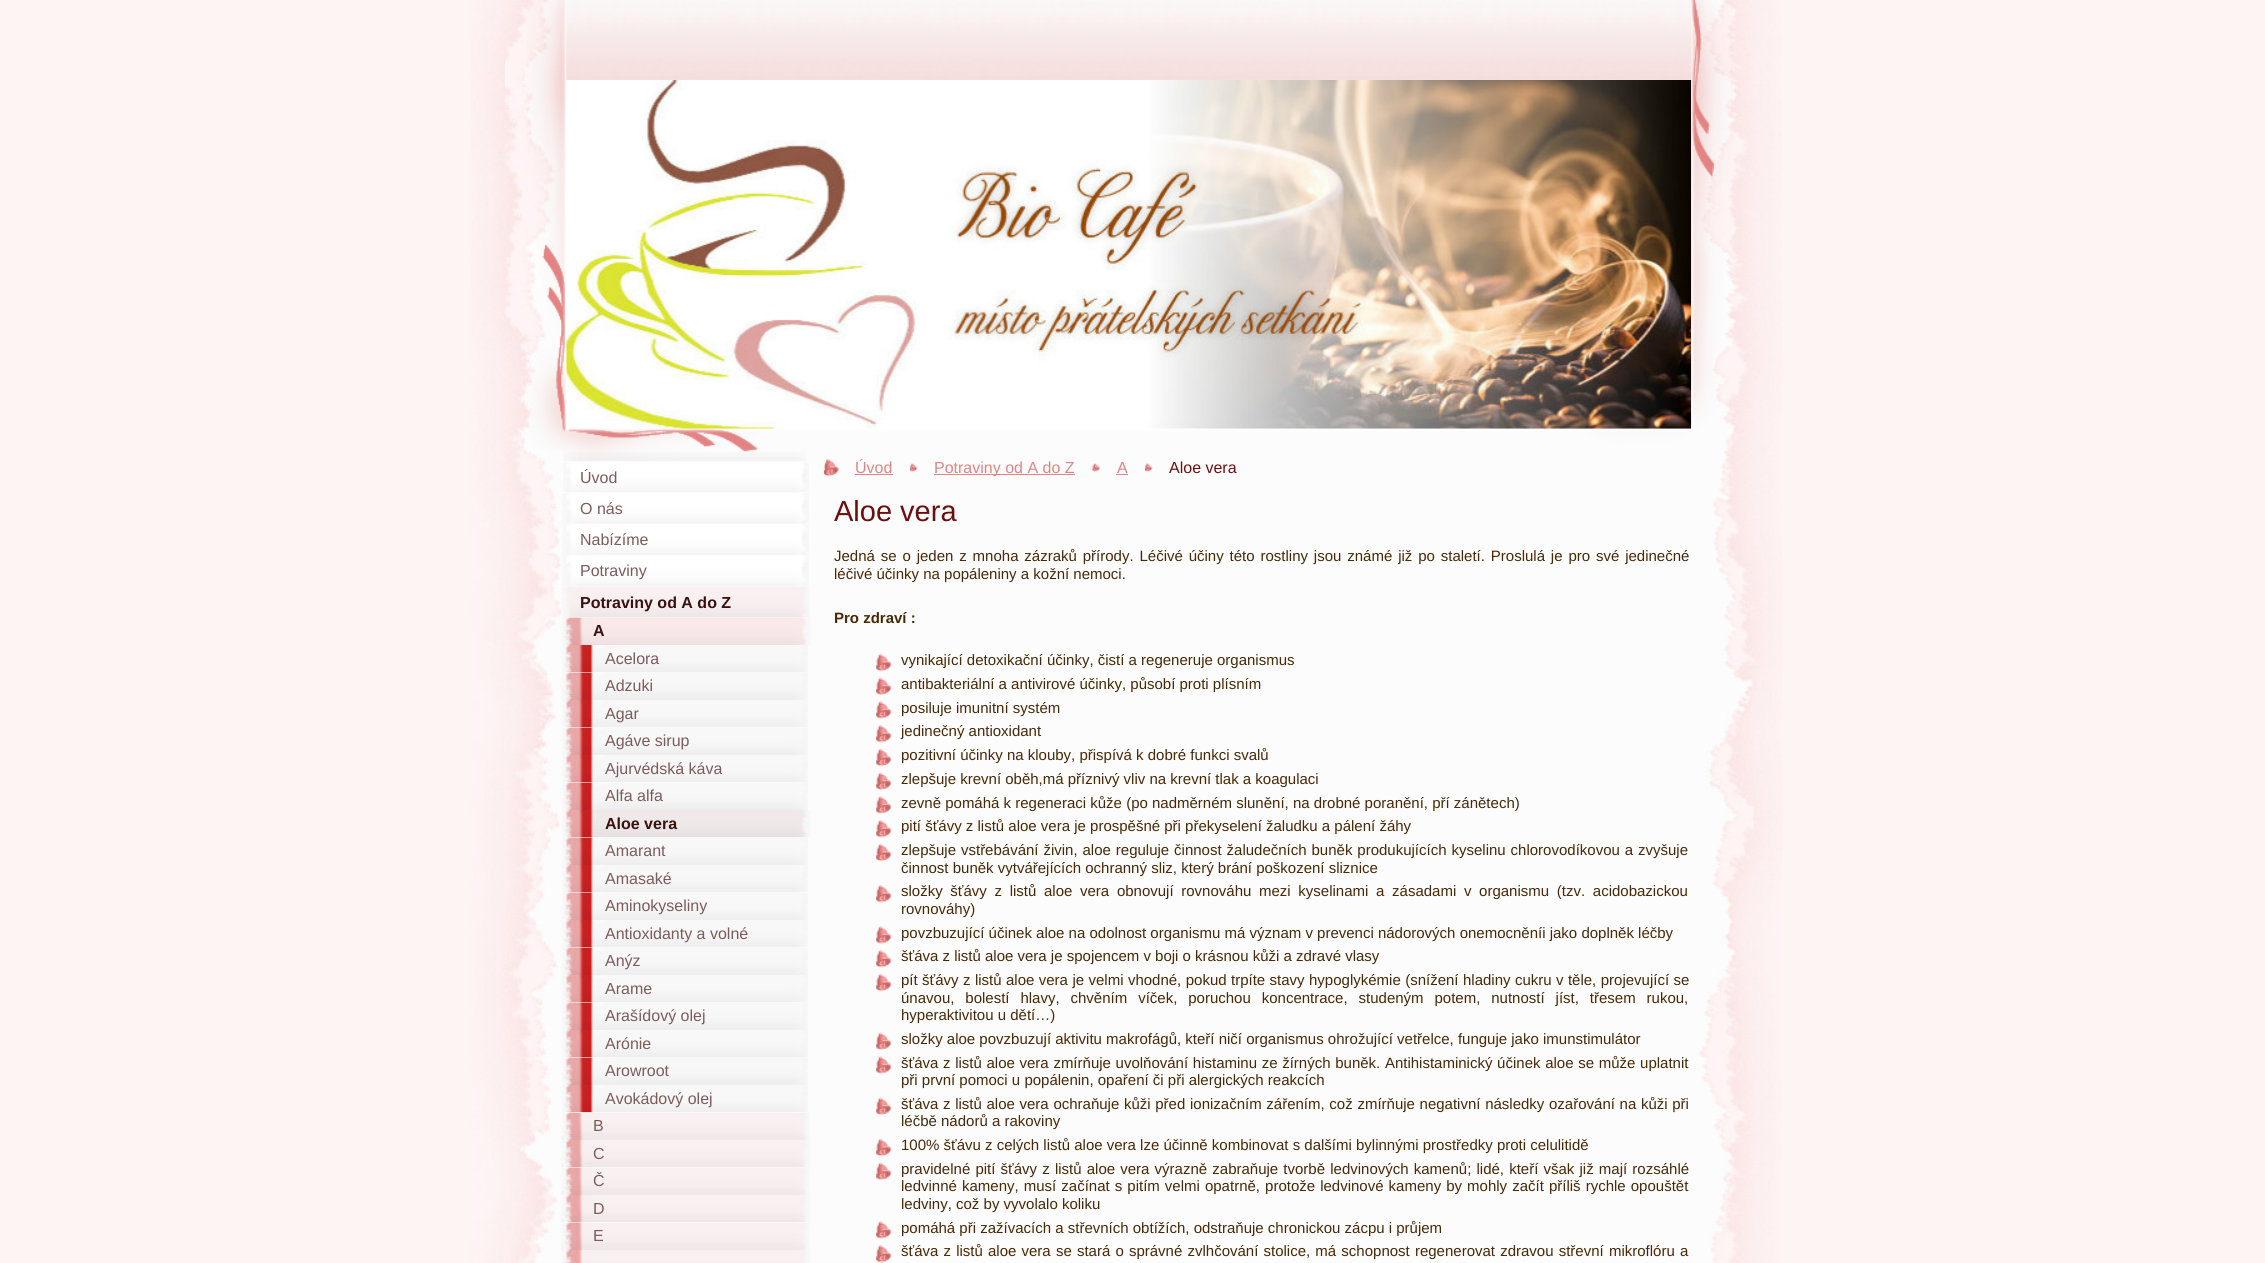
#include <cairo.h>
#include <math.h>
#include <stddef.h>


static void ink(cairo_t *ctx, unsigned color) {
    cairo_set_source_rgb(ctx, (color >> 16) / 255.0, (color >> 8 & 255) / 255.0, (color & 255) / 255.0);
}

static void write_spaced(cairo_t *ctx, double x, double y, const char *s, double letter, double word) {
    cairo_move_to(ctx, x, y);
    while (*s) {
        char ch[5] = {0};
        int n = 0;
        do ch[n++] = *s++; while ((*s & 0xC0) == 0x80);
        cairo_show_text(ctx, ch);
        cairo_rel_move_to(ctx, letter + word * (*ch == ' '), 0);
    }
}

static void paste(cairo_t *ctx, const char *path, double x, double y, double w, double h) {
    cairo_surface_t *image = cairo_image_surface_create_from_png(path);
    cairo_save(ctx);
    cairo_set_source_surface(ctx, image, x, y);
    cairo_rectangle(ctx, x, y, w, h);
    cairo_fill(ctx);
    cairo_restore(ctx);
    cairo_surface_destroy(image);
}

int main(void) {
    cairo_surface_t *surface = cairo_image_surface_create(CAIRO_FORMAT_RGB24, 2265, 1263);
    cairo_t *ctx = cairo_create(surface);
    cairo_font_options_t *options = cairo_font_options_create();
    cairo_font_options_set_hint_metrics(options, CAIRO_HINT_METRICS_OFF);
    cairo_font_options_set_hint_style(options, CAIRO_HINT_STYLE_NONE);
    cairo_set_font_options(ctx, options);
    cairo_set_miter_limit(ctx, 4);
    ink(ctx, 0xFDF4F4);
    cairo_paint(ctx);
    paste(ctx, "media/1.png", 471, 0, 1311, 1263);
    paste(ctx, "media/4.png", 563, 451, 243, 10);
    paste(ctx, "media/2.png", 527, 0, 1206, 452);
    paste(ctx, "media/3.png", 566, 80, 1126, 349);
    paste(ctx, "media/5.png", 563, 462, 246, 30);
    cairo_select_font_face(ctx, "Liberation Sans", CAIRO_FONT_SLANT_NORMAL, CAIRO_FONT_WEIGHT_NORMAL);
    cairo_set_font_size(ctx, 16);
    ink(ctx, 0x7C5B5B);
    cairo_move_to(ctx, 580, 483);
    cairo_show_text(ctx, "Úvod");
    paste(ctx, "media/6.png", 562, 493, 247, 31);
    cairo_move_to(ctx, 580, 514);
    cairo_show_text(ctx, "O nás");
    paste(ctx, "media/7.png", 562, 524, 247, 31);
    cairo_move_to(ctx, 580, 545);
    cairo_show_text(ctx, "Nabízíme");
    paste(ctx, "media/8.png", 562, 555, 247, 31);
    cairo_move_to(ctx, 580, 576);
    cairo_show_text(ctx, "Potraviny");
    paste(ctx, "media/9.png", 561, 586, 249, 32);
    cairo_select_font_face(ctx, "Liberation Sans", CAIRO_FONT_SLANT_NORMAL, CAIRO_FONT_WEIGHT_BOLD);
    ink(ctx, 0x381111);
    cairo_move_to(ctx, 580, 608);
    cairo_show_text(ctx, "Potraviny od A do Z");
    paste(ctx, "media/10.png", 561, 617, 250, 28);
    cairo_move_to(ctx, 593, 636);
    cairo_show_text(ctx, "A");
    paste(ctx, "media/11.png", 562, 645, 246, 28);
    cairo_select_font_face(ctx, "Liberation Sans", CAIRO_FONT_SLANT_NORMAL, CAIRO_FONT_WEIGHT_NORMAL);
    ink(ctx, 0x7C5B5B);
    cairo_move_to(ctx, 605, 664);
    cairo_show_text(ctx, "Acelora");
    paste(ctx, "media/12.png", 561, 672, 247, 28);
    cairo_move_to(ctx, 605, 691);
    cairo_show_text(ctx, "Adzuki");
    paste(ctx, "media/11.png", 562, 700, 246, 28);
    cairo_move_to(ctx, 605, 719);
    cairo_show_text(ctx, "Agar");
    paste(ctx, "media/13.png", 561, 727, 247, 28);
    cairo_move_to(ctx, 605, 746);
    cairo_show_text(ctx, "Agáve sirup");
    paste(ctx, "media/11.png", 562, 755, 246, 28);
    cairo_move_to(ctx, 605, 774);
    cairo_show_text(ctx, "Ajurvédská káva");
    paste(ctx, "media/14.png", 562, 782, 246, 28);
    cairo_move_to(ctx, 605, 801);
    cairo_show_text(ctx, "Alfa alfa");
    paste(ctx, "media/15.png", 561, 810, 250, 28);
    cairo_select_font_face(ctx, "Liberation Sans", CAIRO_FONT_SLANT_NORMAL, CAIRO_FONT_WEIGHT_BOLD);
    ink(ctx, 0x381111);
    cairo_move_to(ctx, 605, 829);
    cairo_show_text(ctx, "Aloe vera");
    paste(ctx, "media/16.png", 562, 837, 246, 28);
    cairo_select_font_face(ctx, "Liberation Sans", CAIRO_FONT_SLANT_NORMAL, CAIRO_FONT_WEIGHT_NORMAL);
    ink(ctx, 0x7C5B5B);
    cairo_move_to(ctx, 605, 856);
    cairo_show_text(ctx, "Amarant");
    paste(ctx, "media/11.png", 562, 865, 246, 28);
    cairo_move_to(ctx, 605, 884);
    cairo_show_text(ctx, "Amasaké");
    paste(ctx, "media/14.png", 562, 892, 246, 28);
    cairo_move_to(ctx, 605, 911);
    cairo_show_text(ctx, "Aminokyseliny");
    paste(ctx, "media/11.png", 562, 920, 246, 28);
    cairo_move_to(ctx, 605, 939);
    cairo_show_text(ctx, "Antioxidanty a volné");
    paste(ctx, "media/17.png", 561, 947, 247, 28);
    cairo_move_to(ctx, 605, 966);
    cairo_show_text(ctx, "Anýz");
    paste(ctx, "media/18.png", 561, 975, 247, 28);
    cairo_move_to(ctx, 605, 994);
    cairo_show_text(ctx, "Arame");
    paste(ctx, "media/14.png", 562, 1002, 246, 28);
    cairo_move_to(ctx, 605, 1021);
    cairo_show_text(ctx, "Arašídový olej");
    paste(ctx, "media/11.png", 562, 1030, 246, 28);
    cairo_move_to(ctx, 605, 1049);
    cairo_show_text(ctx, "Arónie");
    paste(ctx, "media/14.png", 562, 1057, 246, 28);
    cairo_move_to(ctx, 605, 1076);
    cairo_show_text(ctx, "Arowroot");
    paste(ctx, "media/19.png", 562, 1085, 246, 28);
    cairo_move_to(ctx, 605, 1104);
    cairo_show_text(ctx, "Avokádový olej");
    paste(ctx, "media/20.png", 561, 1112, 249, 28);
    cairo_move_to(ctx, 593, 1131);
    cairo_show_text(ctx, "B");
    paste(ctx, "media/21.png", 561, 1140, 250, 28);
    cairo_move_to(ctx, 593, 1159);
    cairo_show_text(ctx, "C");
    paste(ctx, "media/22.png", 561, 1167, 249, 28);
    cairo_move_to(ctx, 593, 1186);
    cairo_show_text(ctx, "Č");
    paste(ctx, "media/23.png", 561, 1195, 250, 28);
    cairo_move_to(ctx, 593, 1214);
    cairo_show_text(ctx, "D");
    paste(ctx, "media/24.png", 561, 1222, 249, 28);
    cairo_move_to(ctx, 593, 1241);
    cairo_show_text(ctx, "E");
    paste(ctx, "media/25.png", 561, 1250, 250, 13);
    paste(ctx, "media/26.png", 823, 458, 16, 19);
    ink(ctx, 0xE28484);
    cairo_move_to(ctx, 855, 473);
    cairo_show_text(ctx, "Úvod");
    cairo_rectangle(ctx, 855, 474, 38, 1);
    cairo_fill(ctx);
    paste(ctx, "media/27.png", 910, 463, 8, 9);
    cairo_rectangle(ctx, 934, 474, 141, 1);
    cairo_fill(ctx);
    cairo_move_to(ctx, 934, 473);
    cairo_show_text(ctx, "Potraviny od A do Z");
    paste(ctx, "media/28.png", 1092, 463, 8, 9);
    cairo_move_to(ctx, 1117, 473);
    cairo_show_text(ctx, "A");
    cairo_rectangle(ctx, 1116, 474, 12, 1);
    cairo_fill(ctx);
    paste(ctx, "media/29.png", 1145, 463, 8, 9);
    ink(ctx, 0x6C0E0E);
    cairo_move_to(ctx, 1169, 473);
    cairo_show_text(ctx, "Aloe vera");
    cairo_set_font_size(ctx, 29);
    cairo_move_to(ctx, 834, 521);
    cairo_show_text(ctx, "Aloe vera");
    cairo_set_font_size(ctx, 15);
    ink(ctx, 0x472907);
    write_spaced(ctx, 834, 561, "Jedná se o jeden z mnoha zázraků přírody. Léčivé účiny této rostliny jsou známé již po staletí. Proslulá je pro své jedinečné", 0, 1.7);
    cairo_move_to(ctx, 834, 579);
    cairo_show_text(ctx, "léčivé účinky na popáleniny a kožní nemoci.");
    cairo_select_font_face(ctx, "Liberation Sans", CAIRO_FONT_SLANT_NORMAL, CAIRO_FONT_WEIGHT_BOLD);
    cairo_move_to(ctx, 834, 623);
    cairo_show_text(ctx, "Pro zdraví :");
    paste(ctx, "media/30.png", 876, 653, 16, 19);
    cairo_select_font_face(ctx, "Liberation Sans", CAIRO_FONT_SLANT_NORMAL, CAIRO_FONT_WEIGHT_NORMAL);
    cairo_move_to(ctx, 901, 665);
    cairo_show_text(ctx, "vynikající detoxikační účinky, čistí a regeneruje organismus");
    paste(ctx, "media/31.png", 876, 677, 16, 18);
    cairo_move_to(ctx, 901, 689);
    cairo_show_text(ctx, "antibakteriální a antivirové účinky, působí proti plísním");
    paste(ctx, "media/32.png", 876, 701, 16, 18);
    cairo_move_to(ctx, 901, 713);
    cairo_show_text(ctx, "posiluje imunitní systém");
    paste(ctx, "media/33.png", 876, 725, 16, 18);
    cairo_move_to(ctx, 901, 736);
    cairo_show_text(ctx, "jedinečný antioxidant");
    paste(ctx, "media/30.png", 876, 748, 16, 19);
    cairo_move_to(ctx, 901, 760);
    cairo_show_text(ctx, "pozitivní účinky na klouby, přispívá k dobré funkci svalů");
    paste(ctx, "media/31.png", 876, 772, 16, 18);
    cairo_move_to(ctx, 901, 784);
    cairo_show_text(ctx, "zlepšuje krevní oběh,má příznivý vliv na krevní tlak a koagulaci");
    paste(ctx, "media/32.png", 876, 796, 16, 18);
    cairo_move_to(ctx, 901, 808);
    cairo_show_text(ctx, "zevně pomáhá k regeneraci kůže (po nadměrném slunění, na drobné poranění, pří zánětech)");
    paste(ctx, "media/33.png", 876, 820, 16, 18);
    cairo_move_to(ctx, 901, 831);
    cairo_show_text(ctx, "pití šťávy z listů aloe vera je prospěšné při překyselení žaludku a pálení žáhy");
    paste(ctx, "media/30.png", 876, 843, 16, 19);
    write_spaced(ctx, 901, 855, "zlepšuje vstřebávání živin, aloe reguluje činnost žaludečních buněk produkujících kyselinu chlorovodíkovou a zvyšuje", 0, 0.75);
    cairo_move_to(ctx, 901, 873);
    cairo_show_text(ctx, "činnost buněk vytvářejících ochranný sliz, který brání poškození sliznice");
    paste(ctx, "media/33.png", 876, 885, 16, 18);
    write_spaced(ctx, 901, 896, "složky šťávy z listů aloe vera obnovují rovnováhu mezi kyselinami a zásadami v organismu (tzv. acidobazickou", 0, 3.5);
    cairo_move_to(ctx, 901, 914);
    cairo_show_text(ctx, "rovnováhy)");
    paste(ctx, "media/32.png", 876, 926, 16, 18);
    cairo_move_to(ctx, 901, 938);
    cairo_show_text(ctx, "povzbuzující účinek aloe na odolnost organismu má význam v prevenci nádorových onemocněníi jako doplněk léčby");
    paste(ctx, "media/33.png", 876, 950, 16, 18);
    cairo_move_to(ctx, 901, 961);
    cairo_show_text(ctx, "šťáva z listů aloe vera je spojencem v boji o krásnou kůži a zdravé vlasy");
    paste(ctx, "media/30.png", 876, 973, 16, 19);
    write_spaced(ctx, 901, 985, "pít šťávy z listů aloe vera je velmi vhodné, pokud trpíte stavy hypoglykémie (snížení hladiny cukru v těle, projevující se", 0, 0.25);
    write_spaced(ctx, 901, 1003, "únavou, bolestí hlavy, chvěním víček, poruchou koncentrace, studeným potem, nutností jíst, třesem rukou,", 0, 6.75);
    cairo_move_to(ctx, 901, 1020);
    cairo_show_text(ctx, "hyperaktivitou u dětí…)");
    paste(ctx, "media/31.png", 876, 1032, 16, 18);
    cairo_move_to(ctx, 901, 1044);
    cairo_show_text(ctx, "složky aloe povzbuzují aktivitu makrofágů, kteří ničí organismus ohrožující vetřelce, funguje jako imunstimulátor");
    paste(ctx, "media/32.png", 876, 1056, 16, 18);
    write_spaced(ctx, 901, 1068, "šťáva z listů aloe vera zmírňuje uvolňování histaminu ze žírných buněk. Antihistaminický účinek aloe se může uplatnit", 0, 0.5);
    cairo_move_to(ctx, 901, 1085);
    cairo_show_text(ctx, "při první pomoci u popálenin, opaření či při alergických reakcích");
    paste(ctx, "media/31.png", 876, 1097, 16, 18);
    write_spaced(ctx, 901, 1109, "šťáva z listů aloe vera ochraňuje kůži před ionizačním zářením, což zmírňuje negativní následky ozařování na kůži při", 0, 0.5);
    cairo_move_to(ctx, 901, 1126);
    cairo_show_text(ctx, "léčbě nádorů a rakoviny");
    paste(ctx, "media/30.png", 876, 1138, 16, 19);
    cairo_move_to(ctx, 901, 1150);
    cairo_show_text(ctx, "100% šťávu z celých listů aloe vera lze účinně kombinovat s dalšími bylinnými prostředky proti celulitidě");
    paste(ctx, "media/31.png", 876, 1162, 16, 18);
    write_spaced(ctx, 901, 1174, "pravidelné pití šťávy z listů aloe vera výrazně zabraňuje tvorbě ledvinových kamenů; lidé, kteří však již mají rozsáhlé", 0, 1);
    write_spaced(ctx, 901, 1191, "ledvinné kameny, musí začínat s pitím velmi opatrně, protože ledvinové kameny by mohly začít příliš rychle opouštět", 0, 0.9);
    cairo_move_to(ctx, 901, 1209);
    cairo_show_text(ctx, "ledviny, což by vyvolalo koliku");
    paste(ctx, "media/32.png", 876, 1221, 16, 18);
    cairo_move_to(ctx, 901, 1233);
    cairo_show_text(ctx, "pomáhá při zažívacích a střevních obtížích, odstraňuje chronickou zácpu i průjem");
    paste(ctx, "media/33.png", 876, 1245, 16, 18);
    write_spaced(ctx, 901, 1256, "šťáva z listů aloe vera se stará o správné zvlhčování stolice, má schopnost regenerovat zdravou střevní mikroflóru a", 0, 1);
    cairo_surface_write_to_png(surface, "image.png");
    cairo_font_options_destroy(options);
    cairo_destroy(ctx);
    cairo_surface_destroy(surface);
    return 0;
}
